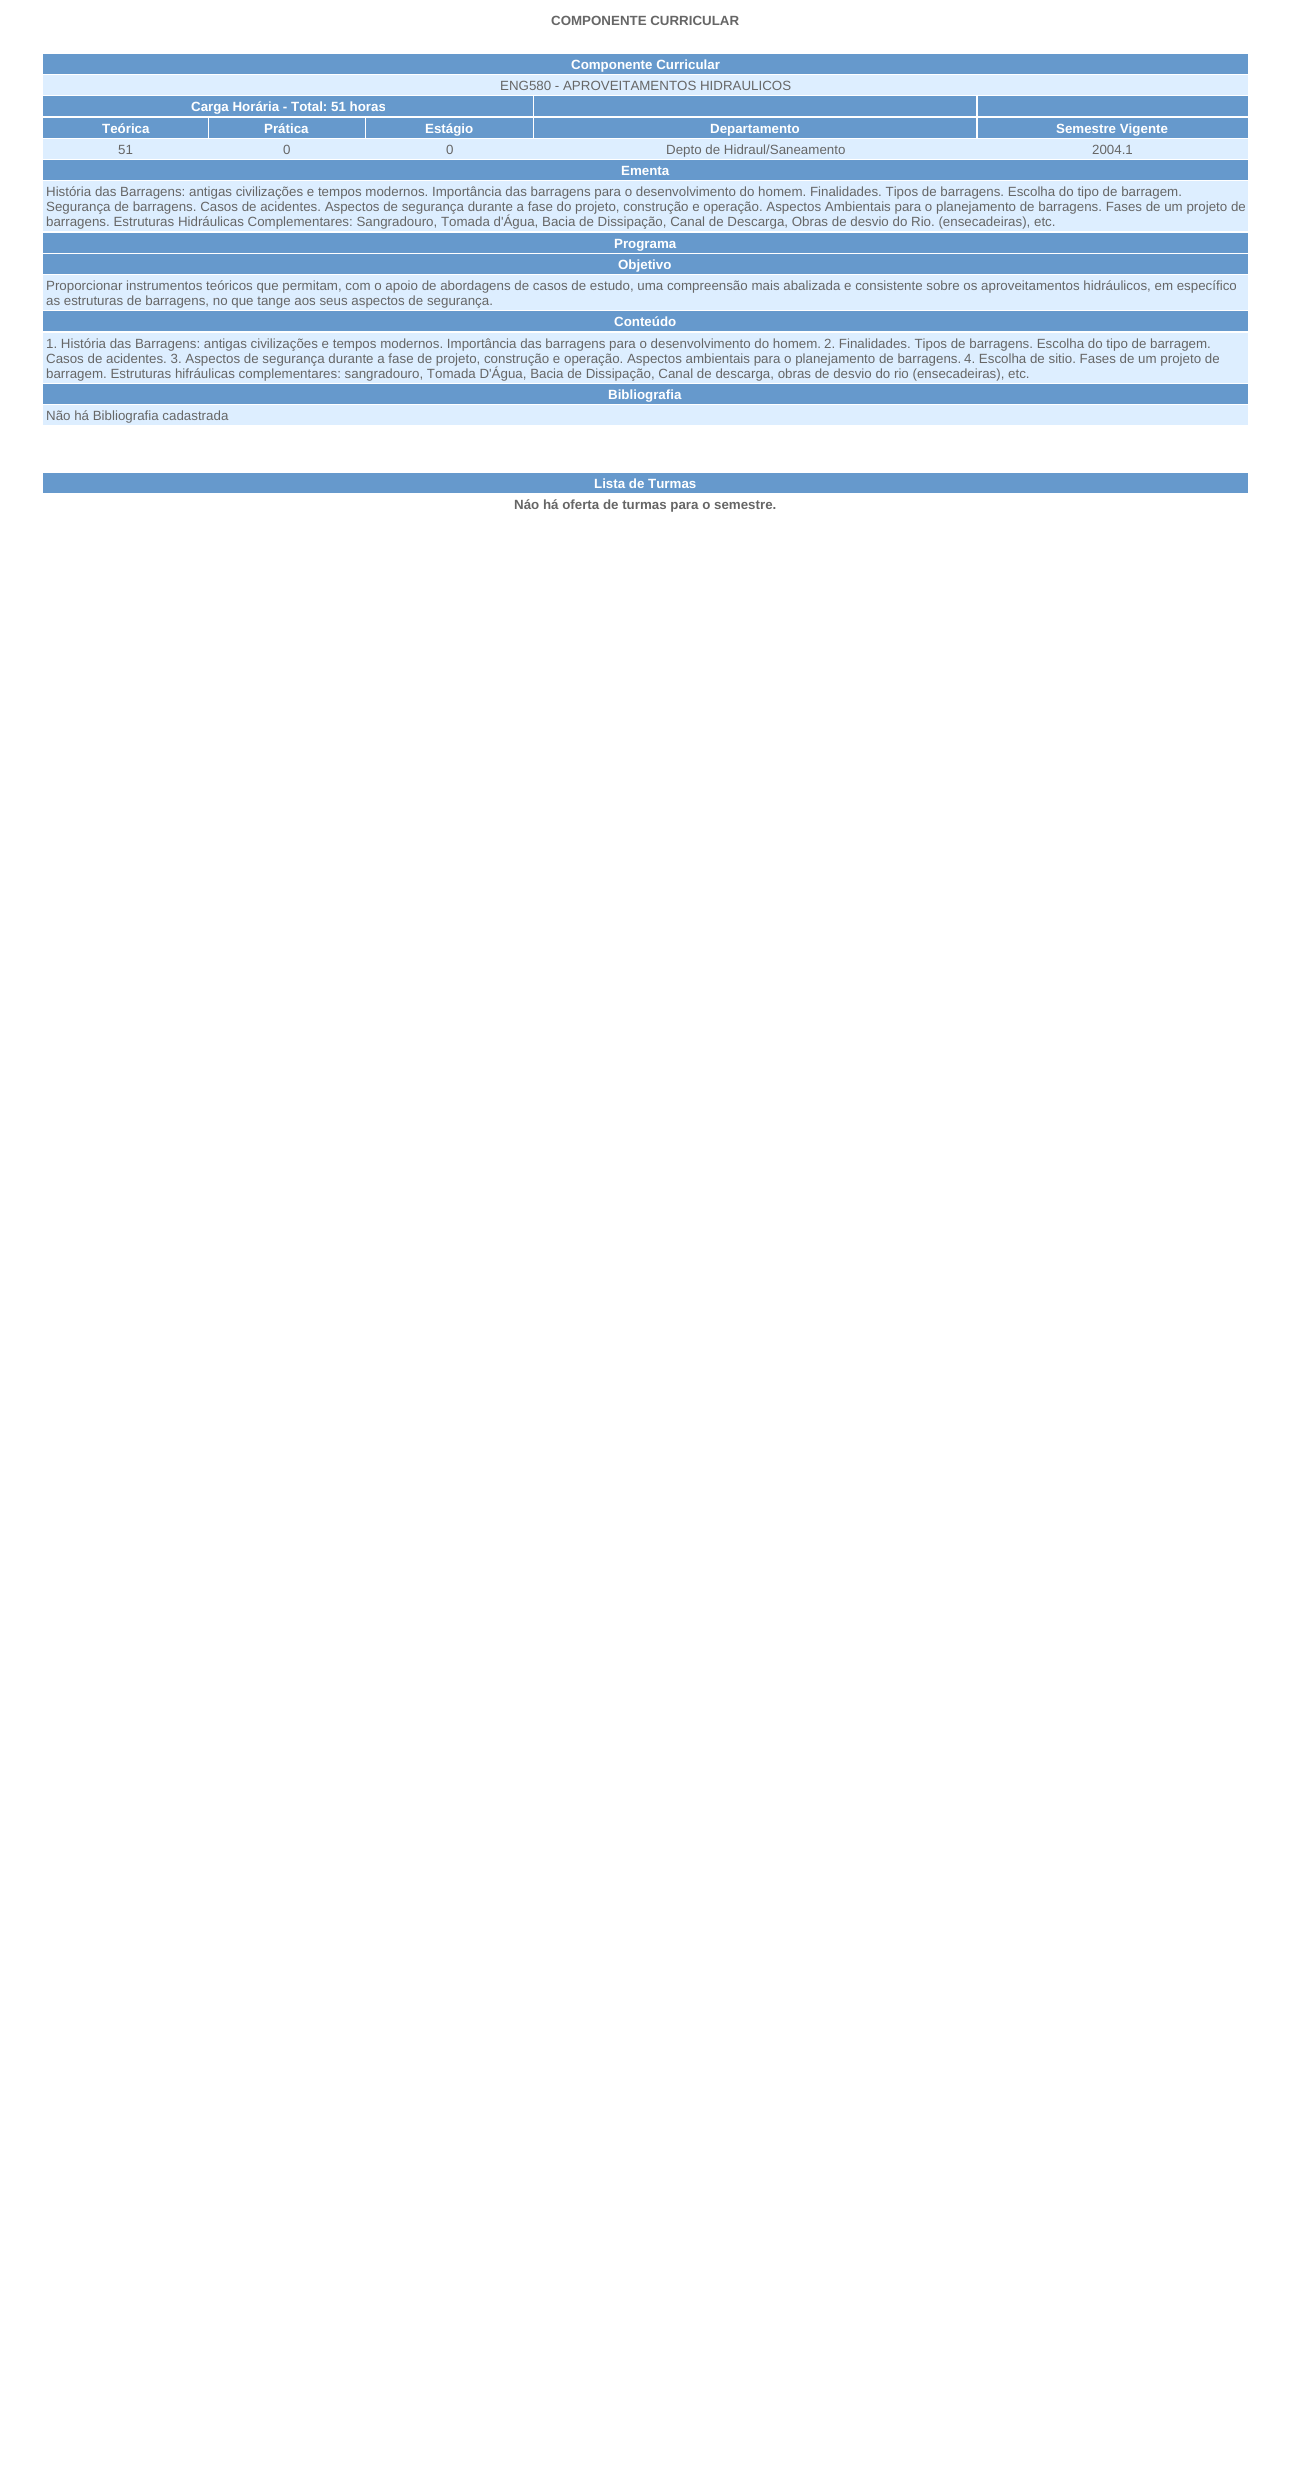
#include <cairo.h>
#include <math.h>
#include <stddef.h>

typedef struct { double x, y; const char *s; } line_t;
typedef struct { double x, y, w, h; unsigned color; } box_t;

static void ink(cairo_t *ctx, unsigned color) {
    cairo_set_source_rgb(ctx, (color >> 16) / 255.0, (color >> 8 & 255) / 255.0, (color & 255) / 255.0);
}

int main(void) {
    cairo_surface_t *surface = cairo_image_surface_create(CAIRO_FORMAT_RGB24, 1289, 2489);
    cairo_t *ctx = cairo_create(surface);
    cairo_font_options_t *options = cairo_font_options_create();
    cairo_font_options_set_hint_metrics(options, CAIRO_HINT_METRICS_OFF);
    cairo_font_options_set_hint_style(options, CAIRO_HINT_STYLE_NONE);
    cairo_set_font_options(ctx, options);
    cairo_set_miter_limit(ctx, 4);
    ink(ctx, 0xFFFFFF);
    cairo_paint(ctx);
    cairo_select_font_face(ctx, "Liberation Sans", CAIRO_FONT_SLANT_NORMAL, CAIRO_FONT_WEIGHT_BOLD);
    cairo_set_font_size(ctx, 13.33);
    ink(ctx, 0x666666);
    cairo_move_to(ctx, 551, 25);
    cairo_show_text(ctx, "COMPONENTE CURRICULAR");
    ink(ctx, 0x6699CC);
    cairo_rectangle(ctx, 43, 54, 1205, 20);
    cairo_fill(ctx);
    ink(ctx, 0xFFFFFF);
    cairo_move_to(ctx, 571, 69);
    cairo_show_text(ctx, "Componente Curricular");
    ink(ctx, 0xDDEEFF);
    cairo_rectangle(ctx, 43, 75, 1205, 20);
    cairo_fill(ctx);
    cairo_select_font_face(ctx, "Liberation Sans", CAIRO_FONT_SLANT_NORMAL, CAIRO_FONT_WEIGHT_NORMAL);
    ink(ctx, 0x666666);
    cairo_move_to(ctx, 500, 90);
    cairo_show_text(ctx, "ENG580 - APROVEITAMENTOS HIDRAULICOS");
    ink(ctx, 0x6699CC);
    cairo_rectangle(ctx, 43, 96, 490, 20);
    cairo_fill(ctx);
    cairo_select_font_face(ctx, "Liberation Sans", CAIRO_FONT_SLANT_NORMAL, CAIRO_FONT_WEIGHT_BOLD);
    ink(ctx, 0xFFFFFF);
    cairo_move_to(ctx, 191, 111);
    cairo_show_text(ctx, "Carga Horária - Total: 51 horas");
    {
        static const box_t items[] = {
            {534, 96, 442, 20, 0x6699CC},
            {978, 96, 270, 20, 0x6699CC},
            {43, 118, 165, 20, 0x6699CC},
        };
        for (size_t i = 0; i < sizeof items / sizeof *items; i++) {
            ink(ctx, items[i].color);
            cairo_rectangle(ctx, items[i].x, items[i].y, items[i].w, items[i].h);
            cairo_fill(ctx);
        }
    }
    ink(ctx, 0xFFFFFF);
    cairo_move_to(ctx, 102, 133);
    cairo_show_text(ctx, "Teórica");
    ink(ctx, 0x6699CC);
    cairo_rectangle(ctx, 209, 118, 156, 20);
    cairo_fill(ctx);
    ink(ctx, 0xFFFFFF);
    cairo_move_to(ctx, 264, 133);
    cairo_show_text(ctx, "Prática");
    ink(ctx, 0x6699CC);
    cairo_rectangle(ctx, 366, 118, 167, 20);
    cairo_fill(ctx);
    ink(ctx, 0xFFFFFF);
    cairo_move_to(ctx, 425, 133);
    cairo_show_text(ctx, "Estágio");
    ink(ctx, 0x6699CC);
    cairo_rectangle(ctx, 534, 118, 442, 20);
    cairo_fill(ctx);
    ink(ctx, 0xFFFFFF);
    cairo_move_to(ctx, 710, 133);
    cairo_show_text(ctx, "Departamento");
    ink(ctx, 0x6699CC);
    cairo_rectangle(ctx, 978, 118, 270, 20);
    cairo_fill(ctx);
    ink(ctx, 0xFFFFFF);
    cairo_move_to(ctx, 1056, 133);
    cairo_show_text(ctx, "Semestre Vigente");
    ink(ctx, 0xDDEEFF);
    cairo_rectangle(ctx, 43, 139, 1205, 20);
    cairo_fill(ctx);
    cairo_select_font_face(ctx, "Liberation Sans", CAIRO_FONT_SLANT_NORMAL, CAIRO_FONT_WEIGHT_NORMAL);
    ink(ctx, 0x666666);
    {
        static const line_t items[] = {
            {118, 154, "51"},
            {283, 154, "0"},
            {446, 154, "0"},
            {666, 154, "Depto de Hidraul/Saneamento"},
            {1092, 154, "2004.1"},
        };
        for (size_t i = 0; i < sizeof items / sizeof *items; i++) {
            cairo_move_to(ctx, items[i].x, items[i].y);
            cairo_show_text(ctx, items[i].s);
        }
    }
    ink(ctx, 0x6699CC);
    cairo_rectangle(ctx, 43, 160, 1205, 20);
    cairo_fill(ctx);
    cairo_select_font_face(ctx, "Liberation Sans", CAIRO_FONT_SLANT_NORMAL, CAIRO_FONT_WEIGHT_BOLD);
    ink(ctx, 0xFFFFFF);
    cairo_move_to(ctx, 621, 175);
    cairo_show_text(ctx, "Ementa");
    ink(ctx, 0xDDEEFF);
    cairo_rectangle(ctx, 43, 181, 1205, 50);
    cairo_fill(ctx);
    cairo_select_font_face(ctx, "Liberation Sans", CAIRO_FONT_SLANT_NORMAL, CAIRO_FONT_WEIGHT_NORMAL);
    ink(ctx, 0x666666);
    {
        static const line_t items[] = {
            {46, 196, "História das Barragens: antigas civilizações e tempos modernos. Importância das barragens para o desenvolvimento do homem. Finalidades. Tipos de barragens. Escolha do tipo de barragem."},
            {46, 211, "Segurança de barragens. Casos de acidentes. Aspectos de segurança durante a fase do projeto, construção e operação. Aspectos Ambientais para o planejamento de barragens. Fases de um projeto de"},
            {46, 226, "barragens. Estruturas Hidráulicas Complementares: Sangradouro, Tomada d'Água, Bacia de Dissipação, Canal de Descarga, Obras de desvio do Rio. (ensecadeiras), etc."},
        };
        for (size_t i = 0; i < sizeof items / sizeof *items; i++) {
            cairo_move_to(ctx, items[i].x, items[i].y);
            cairo_show_text(ctx, items[i].s);
        }
    }
    ink(ctx, 0x6699CC);
    cairo_rectangle(ctx, 43, 233, 1205, 20);
    cairo_fill(ctx);
    cairo_select_font_face(ctx, "Liberation Sans", CAIRO_FONT_SLANT_NORMAL, CAIRO_FONT_WEIGHT_BOLD);
    ink(ctx, 0xFFFFFF);
    cairo_move_to(ctx, 614, 248);
    cairo_show_text(ctx, "Programa");
    ink(ctx, 0x6699CC);
    cairo_rectangle(ctx, 43, 254, 1205, 20);
    cairo_fill(ctx);
    ink(ctx, 0xFFFFFF);
    cairo_move_to(ctx, 618, 269);
    cairo_show_text(ctx, "Objetivo");
    ink(ctx, 0xDDEEFF);
    cairo_rectangle(ctx, 43, 275, 1205, 35);
    cairo_fill(ctx);
    cairo_select_font_face(ctx, "Liberation Sans", CAIRO_FONT_SLANT_NORMAL, CAIRO_FONT_WEIGHT_NORMAL);
    ink(ctx, 0x666666);
    cairo_move_to(ctx, 46, 290);
    cairo_show_text(ctx, "Proporcionar instrumentos teóricos que permitam, com o apoio de abordagens de casos de estudo, uma compreensão mais abalizada e consistente sobre os aproveitamentos hidráulicos, em específico");
    cairo_move_to(ctx, 46, 305);
    cairo_show_text(ctx, "as estruturas de barragens, no que tange aos seus aspectos de segurança.");
    ink(ctx, 0x6699CC);
    cairo_rectangle(ctx, 43, 311, 1205, 20);
    cairo_fill(ctx);
    cairo_select_font_face(ctx, "Liberation Sans", CAIRO_FONT_SLANT_NORMAL, CAIRO_FONT_WEIGHT_BOLD);
    ink(ctx, 0xFFFFFF);
    cairo_move_to(ctx, 614, 326);
    cairo_show_text(ctx, "Conteúdo");
    ink(ctx, 0xDDEEFF);
    cairo_rectangle(ctx, 43, 333, 1205, 50);
    cairo_fill(ctx);
    cairo_select_font_face(ctx, "Liberation Sans", CAIRO_FONT_SLANT_NORMAL, CAIRO_FONT_WEIGHT_NORMAL);
    ink(ctx, 0x666666);
    {
        static const line_t items[] = {
            {46, 348, "1. História das Barragens: antigas civilizações e tempos modernos. Importância das barragens para o desenvolvimento do homem."},
            {824, 348, "2. Finalidades. Tipos de barragens. Escolha do tipo de barragem."},
            {46, 363, "Casos de acidentes. 3. Aspectos de segurança durante a fase de projeto, construção e operação. Aspectos ambientais para o planejamento de barragens."},
            {964, 363, "4. Escolha de sitio. Fases de um projeto de"},
            {46, 378, "barragem. Estruturas hifráulicas complementares: sangradouro, Tomada D'Água, Bacia de Dissipação, Canal de descarga, obras de desvio do rio (ensecadeiras), etc."},
        };
        for (size_t i = 0; i < sizeof items / sizeof *items; i++) {
            cairo_move_to(ctx, items[i].x, items[i].y);
            cairo_show_text(ctx, items[i].s);
        }
    }
    ink(ctx, 0x6699CC);
    cairo_rectangle(ctx, 43, 384, 1205, 20);
    cairo_fill(ctx);
    cairo_select_font_face(ctx, "Liberation Sans", CAIRO_FONT_SLANT_NORMAL, CAIRO_FONT_WEIGHT_BOLD);
    ink(ctx, 0xFFFFFF);
    cairo_move_to(ctx, 608, 399);
    cairo_show_text(ctx, "Bibliografia");
    ink(ctx, 0xDDEEFF);
    cairo_rectangle(ctx, 43, 405, 1205, 20);
    cairo_fill(ctx);
    cairo_select_font_face(ctx, "Liberation Sans", CAIRO_FONT_SLANT_NORMAL, CAIRO_FONT_WEIGHT_NORMAL);
    ink(ctx, 0x666666);
    cairo_move_to(ctx, 46, 420);
    cairo_show_text(ctx, "Não há Bibliografia cadastrada");
    ink(ctx, 0x6699CC);
    cairo_rectangle(ctx, 43, 473, 1205, 20);
    cairo_fill(ctx);
    cairo_select_font_face(ctx, "Liberation Sans", CAIRO_FONT_SLANT_NORMAL, CAIRO_FONT_WEIGHT_BOLD);
    ink(ctx, 0xFFFFFF);
    cairo_move_to(ctx, 594, 488);
    cairo_show_text(ctx, "Lista de Turmas");
    ink(ctx, 0x666666);
    cairo_move_to(ctx, 514, 509);
    cairo_show_text(ctx, "Náo há oferta de turmas para o semestre.");
    cairo_surface_write_to_png(surface, "image.png");
    cairo_font_options_destroy(options);
    cairo_destroy(ctx);
    cairo_surface_destroy(surface);
    return 0;
}
